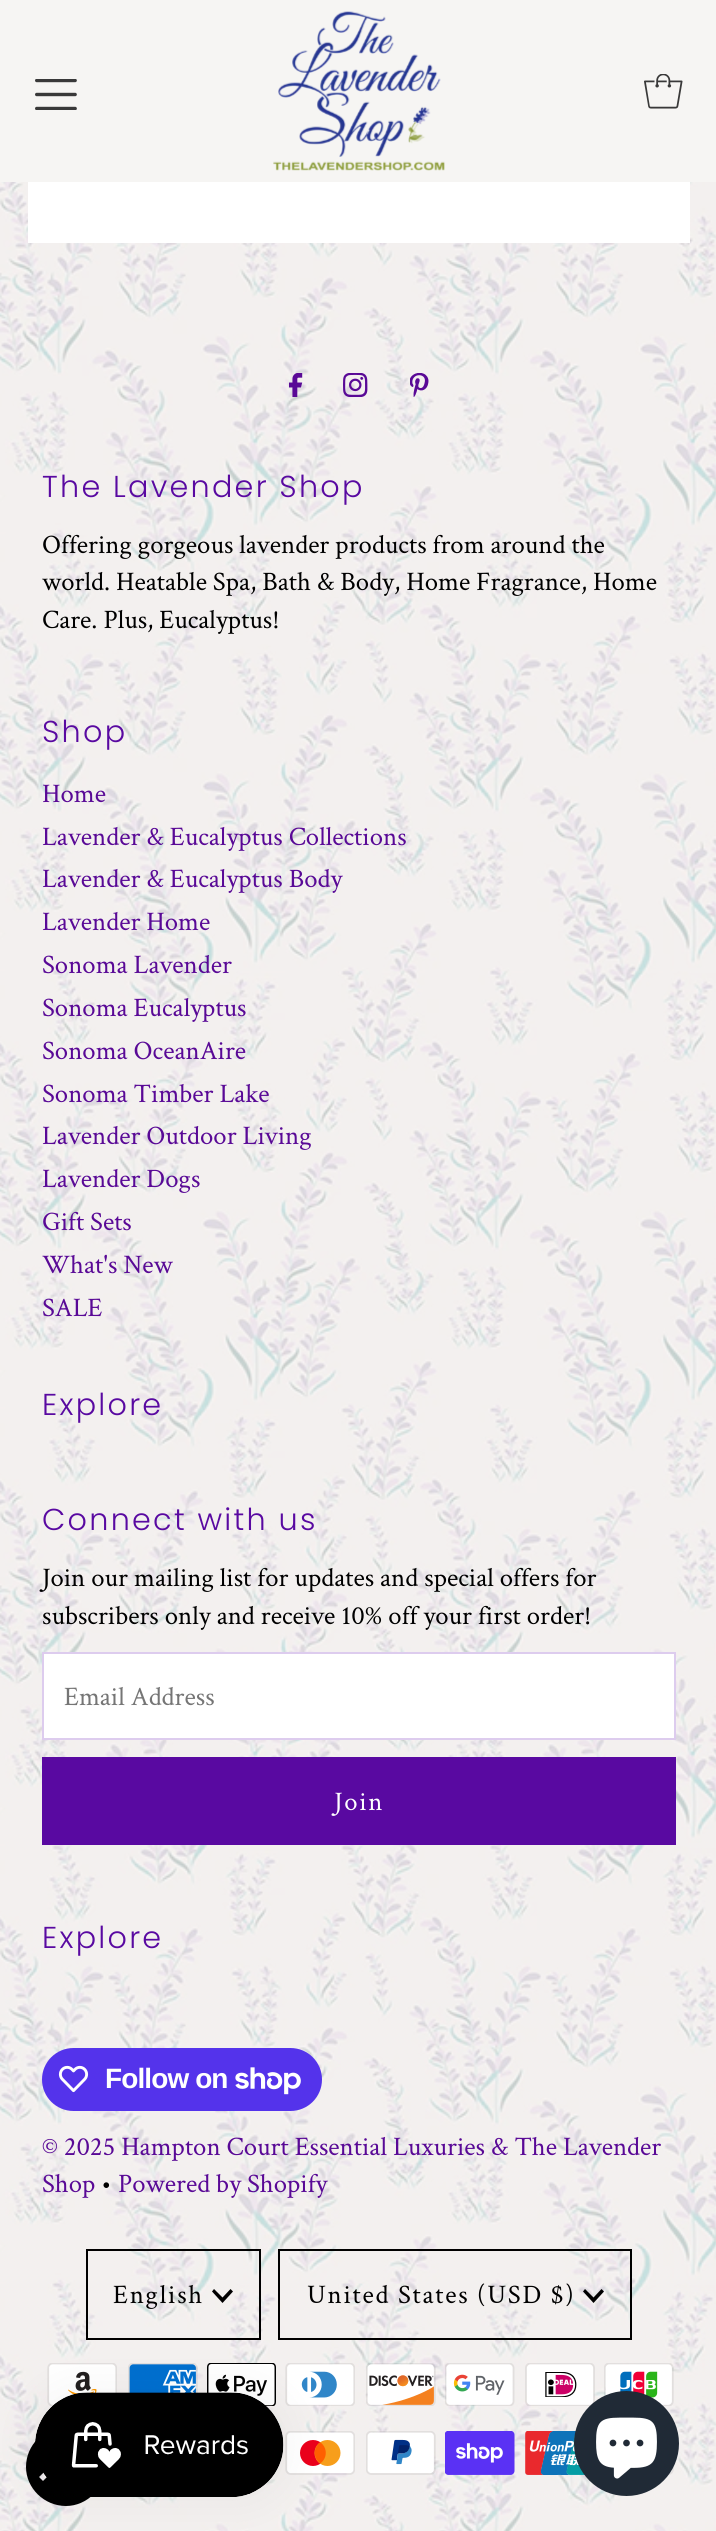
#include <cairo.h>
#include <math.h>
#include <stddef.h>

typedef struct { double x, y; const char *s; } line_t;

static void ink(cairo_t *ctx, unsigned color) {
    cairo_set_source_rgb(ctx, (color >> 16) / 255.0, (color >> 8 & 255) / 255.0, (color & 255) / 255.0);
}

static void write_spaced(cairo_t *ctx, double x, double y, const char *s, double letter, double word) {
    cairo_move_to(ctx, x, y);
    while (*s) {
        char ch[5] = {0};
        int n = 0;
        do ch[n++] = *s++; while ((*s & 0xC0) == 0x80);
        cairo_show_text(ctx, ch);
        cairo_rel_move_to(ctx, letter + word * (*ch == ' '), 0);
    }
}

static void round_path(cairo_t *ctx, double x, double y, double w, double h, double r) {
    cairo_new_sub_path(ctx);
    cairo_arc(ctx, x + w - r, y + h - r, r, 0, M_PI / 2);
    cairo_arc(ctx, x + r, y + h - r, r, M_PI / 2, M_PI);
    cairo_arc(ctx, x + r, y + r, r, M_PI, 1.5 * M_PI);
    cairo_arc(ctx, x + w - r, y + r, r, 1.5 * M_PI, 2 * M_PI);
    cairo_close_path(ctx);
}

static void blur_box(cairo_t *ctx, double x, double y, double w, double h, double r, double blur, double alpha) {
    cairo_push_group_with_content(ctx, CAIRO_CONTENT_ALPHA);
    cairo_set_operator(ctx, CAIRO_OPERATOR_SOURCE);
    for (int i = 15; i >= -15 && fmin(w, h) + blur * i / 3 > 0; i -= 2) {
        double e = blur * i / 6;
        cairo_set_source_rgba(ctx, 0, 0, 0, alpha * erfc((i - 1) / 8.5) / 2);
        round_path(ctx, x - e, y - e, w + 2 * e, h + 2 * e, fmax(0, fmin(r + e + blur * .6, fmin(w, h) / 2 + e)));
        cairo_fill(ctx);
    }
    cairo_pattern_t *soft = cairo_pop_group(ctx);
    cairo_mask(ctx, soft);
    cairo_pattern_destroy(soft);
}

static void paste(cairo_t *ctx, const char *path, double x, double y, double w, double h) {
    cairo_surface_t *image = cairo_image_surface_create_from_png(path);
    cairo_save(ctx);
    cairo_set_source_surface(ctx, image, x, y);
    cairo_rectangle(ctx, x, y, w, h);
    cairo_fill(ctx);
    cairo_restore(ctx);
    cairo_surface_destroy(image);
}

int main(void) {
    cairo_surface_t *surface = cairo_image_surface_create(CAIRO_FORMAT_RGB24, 716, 2531);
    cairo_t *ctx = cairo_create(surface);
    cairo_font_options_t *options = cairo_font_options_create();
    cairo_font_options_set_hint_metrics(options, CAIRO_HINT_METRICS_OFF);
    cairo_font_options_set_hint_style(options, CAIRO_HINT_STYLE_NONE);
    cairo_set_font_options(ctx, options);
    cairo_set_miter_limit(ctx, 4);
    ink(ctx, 0xF6F5F3);
    cairo_paint(ctx);
    paste(ctx, "media/1.png", 0, 182, 716, 2349);
    paste(ctx, "media/2.png", 35, 79, 42, 31);
    paste(ctx, "media/3.png", 273, 11, 172, 160);
    paste(ctx, "media/4.png", 644, 74, 39, 35);
    ink(ctx, 0xFFFFFF);
    cairo_rectangle(ctx, 28, 182, 662, 61);
    cairo_fill(ctx);
    paste(ctx, "media/5.png", 289, 373, 14, 24);
    paste(ctx, "media/6.png", 343, 373, 25, 24);
    paste(ctx, "media/7.png", 410, 373, 19, 24);
    cairo_select_font_face(ctx, "Poppins Light", CAIRO_FONT_SLANT_NORMAL, CAIRO_FONT_WEIGHT_NORMAL);
    cairo_set_font_size(ctx, 30.25);
    ink(ctx, 0x5909A1);
    write_spaced(ctx, 42, 497, "The Lavender Shop", 2.25, 0);
    cairo_select_font_face(ctx, "Crimson Text", CAIRO_FONT_SLANT_NORMAL, CAIRO_FONT_WEIGHT_NORMAL);
    cairo_set_font_size(ctx, 26.75);
    ink(ctx, 0x000000);
    {
        static const line_t items[] = {
            {42, 553, "Offering gorgeous lavender products from around the"},
            {42, 590, "world. Heatable Spa, Bath & Body, Home Fragrance, Home"},
            {42, 628, "Care. Plus, Eucalyptus!"},
        };
        for (size_t i = 0; i < sizeof items / sizeof *items; i++) {
            cairo_move_to(ctx, items[i].x, items[i].y);
            cairo_show_text(ctx, items[i].s);
        }
    }
    cairo_select_font_face(ctx, "Poppins Light", CAIRO_FONT_SLANT_NORMAL, CAIRO_FONT_WEIGHT_NORMAL);
    cairo_set_font_size(ctx, 30.25);
    ink(ctx, 0x5909A1);
    write_spaced(ctx, 42, 742, "Shop", 2.25, 0);
    cairo_select_font_face(ctx, "Crimson Text", CAIRO_FONT_SLANT_NORMAL, CAIRO_FONT_WEIGHT_NORMAL);
    cairo_set_font_size(ctx, 26.75);
    ink(ctx, 0x590996);
    {
        static const line_t items[] = {
            {42, 802, "Home"},
            {42, 845, "Lavender & Eucalyptus Collections"},
            {42, 887, "Lavender & Eucalyptus Body"},
            {42, 930, "Lavender Home"},
            {42, 973, "Sonoma Lavender"},
            {42, 1016, "Sonoma Eucalyptus"},
            {42, 1059, "Sonoma OceanAire"},
            {42, 1102, "Sonoma Timber Lake"},
            {42, 1144, "Lavender Outdoor Living"},
            {42, 1187, "Lavender Dogs"},
            {42, 1230, "Gift Sets"},
            {42, 1273, "What's New"},
            {42, 1316, "SALE"},
        };
        for (size_t i = 0; i < sizeof items / sizeof *items; i++) {
            cairo_move_to(ctx, items[i].x, items[i].y);
            cairo_show_text(ctx, items[i].s);
        }
    }
    cairo_select_font_face(ctx, "Poppins Light", CAIRO_FONT_SLANT_NORMAL, CAIRO_FONT_WEIGHT_NORMAL);
    cairo_set_font_size(ctx, 30.25);
    ink(ctx, 0x5909A1);
    write_spaced(ctx, 42, 1415, "Explore", 2.25, 0);
    write_spaced(ctx, 42, 1530, "Connect with us", 2.25, 0);
    cairo_select_font_face(ctx, "Crimson Text", CAIRO_FONT_SLANT_NORMAL, CAIRO_FONT_WEIGHT_NORMAL);
    cairo_set_font_size(ctx, 26.75);
    ink(ctx, 0x000000);
    cairo_move_to(ctx, 42, 1586);
    cairo_show_text(ctx, "Join our mailing list for updates and special offers for");
    cairo_move_to(ctx, 42, 1624);
    cairo_show_text(ctx, "subscribers only and receive 10% off your first order!");
    ink(ctx, 0xFFFFFF);
    cairo_rectangle(ctx, 43, 1653, 632, 86);
    cairo_fill_preserve(ctx);
    ink(ctx, 0xDDCCEE);
    cairo_stroke(ctx);
    ink(ctx, 0x757575);
    cairo_move_to(ctx, 64, 1705);
    cairo_show_text(ctx, "Email Address");
    ink(ctx, 0x5909A1);
    cairo_rectangle(ctx, 42, 1757, 634, 88);
    cairo_fill(ctx);
    ink(ctx, 0xFFFFFF);
    write_spaced(ctx, 334, 1810, "Join", 1.75, 0);
    cairo_select_font_face(ctx, "Poppins Light", CAIRO_FONT_SLANT_NORMAL, CAIRO_FONT_WEIGHT_NORMAL);
    cairo_set_font_size(ctx, 30.25);
    ink(ctx, 0x5909A1);
    write_spaced(ctx, 42, 1948, "Explore", 2.25, 0);
    ink(ctx, 0x5433EB);
    round_path(ctx, 42, 2048, 280, 63, 31.5);
    cairo_fill(ctx);
    paste(ctx, "media/8.png", 58, 2065, 31, 28);
    cairo_select_font_face(ctx, "Liberation Sans", CAIRO_FONT_SLANT_NORMAL, CAIRO_FONT_WEIGHT_BOLD);
    cairo_set_font_size(ctx, 28);
    ink(ctx, 0xFFFFFF);
    write_spaced(ctx, 105, 2088, "Follow on", -0.9, 0);
    paste(ctx, "media/9.png", 235, 2067, 66, 28);
    cairo_select_font_face(ctx, "Crimson Text", CAIRO_FONT_SLANT_NORMAL, CAIRO_FONT_WEIGHT_NORMAL);
    cairo_set_font_size(ctx, 26.75);
    ink(ctx, 0x590996);
    cairo_move_to(ctx, 42, 2155);
    cairo_show_text(ctx, "© 2025 Hampton Court Essential Luxuries & The Lavender");
    cairo_move_to(ctx, 42, 2192);
    cairo_show_text(ctx, "Shop");
    ink(ctx, 0x000000);
    cairo_move_to(ctx, 101, 2192);
    cairo_show_text(ctx, "•");
    ink(ctx, 0x590996);
    cairo_move_to(ctx, 118, 2192);
    cairo_show_text(ctx, "Powered by Shopify");
    cairo_rectangle(ctx, 87, 2250, 173, 89);
    ink(ctx, 0x000000);
    cairo_stroke(ctx);
    write_spaced(ctx, 113, 2303, "English", 1.75, 0);
    cairo_new_path(ctx);
    cairo_move_to(ctx, 230.5, 2289);
    cairo_line_to(ctx, 222.5, 2297.5);
    cairo_line_to(ctx, 214, 2289);
    cairo_line_to(ctx, 212, 2291.5);
    cairo_line_to(ctx, 222.5, 2303);
    cairo_line_to(ctx, 233, 2291.5);
    cairo_close_path(ctx);
    cairo_fill(ctx);
    cairo_rectangle(ctx, 279, 2250, 352, 89);
    cairo_stroke(ctx);
    write_spaced(ctx, 307, 2303, "United States (USD $)", 1.75, 0);
    cairo_new_path(ctx);
    cairo_move_to(ctx, 601.5, 2289);
    cairo_line_to(ctx, 593.5, 2297.5);
    cairo_line_to(ctx, 585, 2289);
    cairo_line_to(ctx, 583, 2291.5);
    cairo_line_to(ctx, 593.5, 2303);
    cairo_line_to(ctx, 604, 2291.5);
    cairo_close_path(ctx);
    cairo_fill(ctx);
    paste(ctx, "media/10.png", 47, 2363, 70, 43);
    paste(ctx, "media/11.png", 128, 2363, 70, 30);
    paste(ctx, "media/12.png", 207, 2363, 69, 43);
    paste(ctx, "media/13.png", 285, 2363, 70, 43);
    paste(ctx, "media/14.png", 366, 2363, 70, 43);
    paste(ctx, "media/15.png", 445, 2363, 70, 43);
    paste(ctx, "media/16.png", 525, 2363, 70, 43);
    paste(ctx, "media/17.png", 604, 2363, 70, 43);
    paste(ctx, "media/18.png", 273, 2470, 4, 5);
    paste(ctx, "media/19.png", 285, 2431, 70, 44);
    paste(ctx, "media/20.png", 366, 2431, 70, 44);
    paste(ctx, "media/21.png", 445, 2431, 70, 44);
    paste(ctx, "media/22.png", 525, 2431, 60, 44);
    paste(ctx, "media/23.png", 668, 2465, 6, 10);
    cairo_set_fill_rule(ctx, CAIRO_FILL_RULE_EVEN_ODD);
    cairo_new_path(ctx);
    cairo_move_to(ctx, 66, 2427);
    cairo_curve_to(ctx, 44, 2427, 26, 2445, 26, 2467);
    cairo_curve_to(ctx, 26, 2488, 44, 2506, 66, 2506);
    cairo_curve_to(ctx, 87, 2506, 105, 2488, 105, 2467);
    cairo_curve_to(ctx, 105, 2445, 87, 2427, 66, 2427);
    cairo_close_path(ctx);
    cairo_move_to(ctx, 88, 2481);
    cairo_line_to(ctx, 66, 2458);
    cairo_line_to(ctx, 43, 2481);
    cairo_line_to(ctx, 39, 2477);
    cairo_line_to(ctx, 66, 2451);
    cairo_line_to(ctx, 92, 2477);
    cairo_close_path(ctx);
    cairo_fill(ctx);
    ink(ctx, 0x000000);
    blur_box(ctx, 35, 2392, 249, 105, 52.5, 22, 0.05);
    paste(ctx, "media/24.png", 35, 2392, 249, 105);
    ink(ctx, 0x202A36);
    cairo_arc(ctx, 626.5, 2443.5, 52.5, 0, 2 * M_PI);
    cairo_fill(ctx);
    paste(ctx, "media/25.png", 596, 2417, 61, 62);
    cairo_surface_write_to_png(surface, "image.png");
    cairo_font_options_destroy(options);
    cairo_destroy(ctx);
    cairo_surface_destroy(surface);
    return 0;
}
